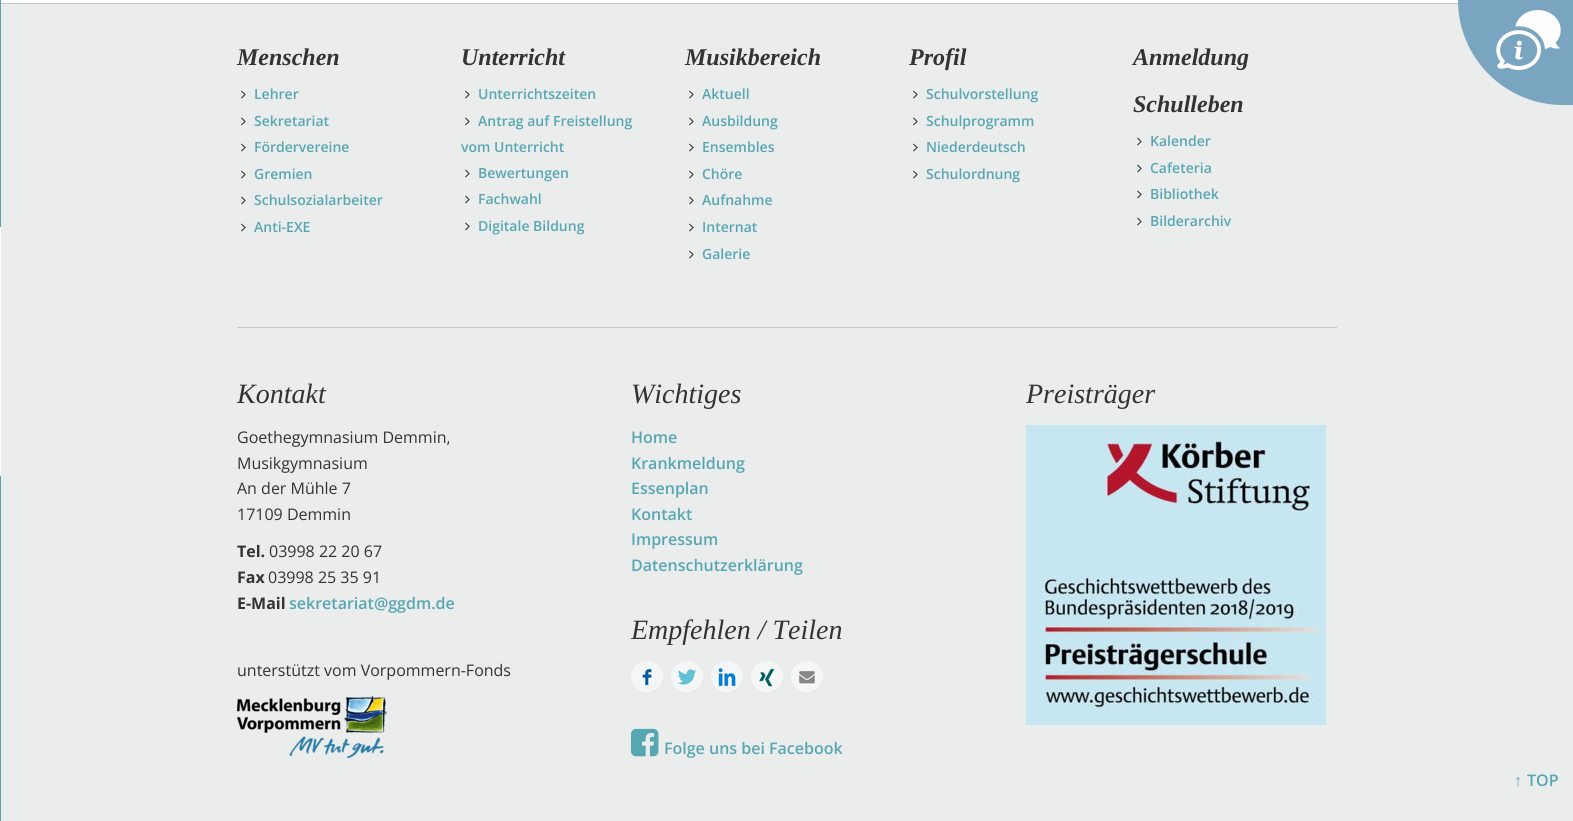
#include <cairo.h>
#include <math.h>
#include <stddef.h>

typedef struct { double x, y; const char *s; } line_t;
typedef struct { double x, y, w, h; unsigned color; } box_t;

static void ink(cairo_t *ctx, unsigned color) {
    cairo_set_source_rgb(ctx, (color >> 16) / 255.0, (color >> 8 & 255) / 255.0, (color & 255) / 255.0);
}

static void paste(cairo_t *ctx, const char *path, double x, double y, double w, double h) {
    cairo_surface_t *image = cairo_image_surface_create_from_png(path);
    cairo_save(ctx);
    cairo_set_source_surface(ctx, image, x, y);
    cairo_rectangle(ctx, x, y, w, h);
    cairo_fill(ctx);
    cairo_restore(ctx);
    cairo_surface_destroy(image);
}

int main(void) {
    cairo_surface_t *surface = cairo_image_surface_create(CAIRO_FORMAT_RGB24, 1573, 821);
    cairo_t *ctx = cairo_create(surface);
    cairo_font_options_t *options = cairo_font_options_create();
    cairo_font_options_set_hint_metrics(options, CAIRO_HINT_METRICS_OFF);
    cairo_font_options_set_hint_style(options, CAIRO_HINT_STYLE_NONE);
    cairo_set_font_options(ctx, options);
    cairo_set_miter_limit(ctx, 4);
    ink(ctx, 0xFFFFFF);
    cairo_paint(ctx);
    {
        static const box_t items[] = {
            {0, 3, 1459, 1, 0xC5C6C6},
            {0, 0, 1, 821, 0x57A7B3},
            {0, 227, 1, 249, 0xFFFFFF},
            {1, 4, 1572, 817, 0xEBECEC},
            {237, 327, 1100, 1, 0xC5C6C6},
        };
        for (size_t i = 0; i < sizeof items / sizeof *items; i++) {
            ink(ctx, items[i].color);
            cairo_rectangle(ctx, items[i].x, items[i].y, items[i].w, items[i].h);
            cairo_fill(ctx);
        }
    }
    cairo_select_font_face(ctx, "Liberation Serif", CAIRO_FONT_SLANT_ITALIC, CAIRO_FONT_WEIGHT_BOLD);
    cairo_set_font_size(ctx, 24);
    ink(ctx, 0x333333);
    cairo_move_to(ctx, 237, 65);
    cairo_show_text(ctx, "Menschen");
    paste(ctx, "media/1.png", 241, 90, 5, 9);
    cairo_select_font_face(ctx, "Open Sans SemiBold", CAIRO_FONT_SLANT_NORMAL, CAIRO_FONT_WEIGHT_NORMAL);
    cairo_set_font_size(ctx, 14);
    ink(ctx, 0x57A7B3);
    cairo_move_to(ctx, 254, 99);
    cairo_show_text(ctx, "Lehrer");
    paste(ctx, "media/1.png", 241, 117, 5, 9);
    cairo_move_to(ctx, 254, 126);
    cairo_show_text(ctx, "Sekretariat");
    paste(ctx, "media/1.png", 241, 143, 5, 9);
    cairo_move_to(ctx, 254, 152);
    cairo_show_text(ctx, "Fördervereine");
    paste(ctx, "media/1.png", 241, 170, 5, 9);
    cairo_move_to(ctx, 254, 179);
    cairo_show_text(ctx, "Gremien");
    paste(ctx, "media/1.png", 241, 196, 5, 9);
    cairo_move_to(ctx, 254, 205);
    cairo_show_text(ctx, "Schulsozialarbeiter");
    paste(ctx, "media/1.png", 241, 223, 5, 9);
    cairo_move_to(ctx, 254, 232);
    cairo_show_text(ctx, "Anti-EXE");
    cairo_select_font_face(ctx, "Liberation Serif", CAIRO_FONT_SLANT_ITALIC, CAIRO_FONT_WEIGHT_BOLD);
    cairo_set_font_size(ctx, 24);
    ink(ctx, 0x333333);
    cairo_move_to(ctx, 461, 65);
    cairo_show_text(ctx, "Unterricht");
    paste(ctx, "media/1.png", 465, 90, 5, 9);
    cairo_select_font_face(ctx, "Open Sans SemiBold", CAIRO_FONT_SLANT_NORMAL, CAIRO_FONT_WEIGHT_NORMAL);
    cairo_set_font_size(ctx, 14);
    ink(ctx, 0x57A7B3);
    cairo_move_to(ctx, 478, 99);
    cairo_show_text(ctx, "Unterrichtszeiten");
    paste(ctx, "media/1.png", 465, 117, 5, 9);
    cairo_move_to(ctx, 478, 126);
    cairo_show_text(ctx, "Antrag auf Freistellung");
    cairo_move_to(ctx, 461, 152);
    cairo_show_text(ctx, "vom Unterricht");
    paste(ctx, "media/1.png", 465, 169, 5, 9);
    cairo_move_to(ctx, 478, 178);
    cairo_show_text(ctx, "Bewertungen");
    paste(ctx, "media/1.png", 465, 195, 5, 9);
    cairo_move_to(ctx, 478, 204);
    cairo_show_text(ctx, "Fachwahl");
    paste(ctx, "media/1.png", 465, 222, 5, 9);
    cairo_move_to(ctx, 478, 231);
    cairo_show_text(ctx, "Digitale Bildung");
    cairo_select_font_face(ctx, "Liberation Serif", CAIRO_FONT_SLANT_ITALIC, CAIRO_FONT_WEIGHT_BOLD);
    cairo_set_font_size(ctx, 24);
    ink(ctx, 0x333333);
    cairo_move_to(ctx, 685, 65);
    cairo_show_text(ctx, "Musikbereich");
    paste(ctx, "media/1.png", 689, 90, 5, 9);
    cairo_select_font_face(ctx, "Open Sans SemiBold", CAIRO_FONT_SLANT_NORMAL, CAIRO_FONT_WEIGHT_NORMAL);
    cairo_set_font_size(ctx, 14);
    ink(ctx, 0x57A7B3);
    cairo_move_to(ctx, 702, 99);
    cairo_show_text(ctx, "Aktuell");
    paste(ctx, "media/1.png", 689, 117, 5, 9);
    cairo_move_to(ctx, 702, 126);
    cairo_show_text(ctx, "Ausbildung");
    paste(ctx, "media/1.png", 689, 143, 5, 9);
    cairo_move_to(ctx, 702, 152);
    cairo_show_text(ctx, "Ensembles");
    paste(ctx, "media/1.png", 689, 170, 5, 9);
    cairo_move_to(ctx, 702, 179);
    cairo_show_text(ctx, "Chöre");
    paste(ctx, "media/1.png", 689, 196, 5, 9);
    cairo_move_to(ctx, 702, 205);
    cairo_show_text(ctx, "Aufnahme");
    paste(ctx, "media/1.png", 689, 223, 5, 9);
    cairo_move_to(ctx, 702, 232);
    cairo_show_text(ctx, "Internat");
    paste(ctx, "media/1.png", 689, 250, 5, 9);
    cairo_move_to(ctx, 702, 259);
    cairo_show_text(ctx, "Galerie");
    cairo_select_font_face(ctx, "Liberation Serif", CAIRO_FONT_SLANT_ITALIC, CAIRO_FONT_WEIGHT_BOLD);
    cairo_set_font_size(ctx, 24);
    ink(ctx, 0x333333);
    cairo_move_to(ctx, 909, 65);
    cairo_show_text(ctx, "Profil");
    paste(ctx, "media/1.png", 913, 90, 5, 9);
    cairo_select_font_face(ctx, "Open Sans SemiBold", CAIRO_FONT_SLANT_NORMAL, CAIRO_FONT_WEIGHT_NORMAL);
    cairo_set_font_size(ctx, 14);
    ink(ctx, 0x57A7B3);
    cairo_move_to(ctx, 926, 99);
    cairo_show_text(ctx, "Schulvorstellung");
    paste(ctx, "media/1.png", 913, 117, 5, 9);
    cairo_move_to(ctx, 926, 126);
    cairo_show_text(ctx, "Schulprogramm");
    paste(ctx, "media/1.png", 913, 143, 5, 9);
    cairo_move_to(ctx, 926, 152);
    cairo_show_text(ctx, "Niederdeutsch");
    paste(ctx, "media/1.png", 913, 170, 5, 9);
    cairo_move_to(ctx, 926, 179);
    cairo_show_text(ctx, "Schulordnung");
    cairo_select_font_face(ctx, "Liberation Serif", CAIRO_FONT_SLANT_ITALIC, CAIRO_FONT_WEIGHT_BOLD);
    cairo_set_font_size(ctx, 24);
    ink(ctx, 0x333333);
    cairo_move_to(ctx, 1133, 65);
    cairo_show_text(ctx, "Anmeldung");
    cairo_move_to(ctx, 1133, 112);
    cairo_show_text(ctx, "Schulleben");
    paste(ctx, "media/1.png", 1137, 137, 5, 9);
    cairo_select_font_face(ctx, "Open Sans SemiBold", CAIRO_FONT_SLANT_NORMAL, CAIRO_FONT_WEIGHT_NORMAL);
    cairo_set_font_size(ctx, 14);
    ink(ctx, 0x57A7B3);
    cairo_move_to(ctx, 1150, 146);
    cairo_show_text(ctx, "Kalender");
    paste(ctx, "media/1.png", 1137, 164, 5, 9);
    cairo_move_to(ctx, 1150, 173);
    cairo_show_text(ctx, "Cafeteria");
    paste(ctx, "media/1.png", 1137, 190, 5, 9);
    cairo_move_to(ctx, 1150, 199);
    cairo_show_text(ctx, "Bibliothek");
    paste(ctx, "media/1.png", 1137, 217, 5, 9);
    cairo_move_to(ctx, 1150, 226);
    cairo_show_text(ctx, "Bilderarchiv");
    cairo_select_font_face(ctx, "Liberation Serif", CAIRO_FONT_SLANT_ITALIC, CAIRO_FONT_WEIGHT_NORMAL);
    cairo_set_font_size(ctx, 28);
    ink(ctx, 0x333333);
    cairo_move_to(ctx, 237, 403);
    cairo_show_text(ctx, "Kontakt");
    cairo_select_font_face(ctx, "Open Sans", CAIRO_FONT_SLANT_NORMAL, CAIRO_FONT_WEIGHT_NORMAL);
    cairo_set_font_size(ctx, 16);
    {
        static const line_t items[] = {
            {237, 443, "Goethegymnasium Demmin,"},
            {237, 469, "Musikgymnasium"},
            {237, 494, "An der Mühle 7"},
            {237, 520, "17109 Demmin"},
        };
        for (size_t i = 0; i < sizeof items / sizeof *items; i++) {
            cairo_move_to(ctx, items[i].x, items[i].y);
            cairo_show_text(ctx, items[i].s);
        }
    }
    cairo_save(ctx);
    cairo_rectangle(ctx, 237, 368, 310, 260);
    cairo_clip(ctx);
    cairo_select_font_face(ctx, "Open Sans", CAIRO_FONT_SLANT_NORMAL, CAIRO_FONT_WEIGHT_BOLD);
    cairo_move_to(ctx, 237, 557);
    cairo_show_text(ctx, "Tel.");
    cairo_restore(ctx);
    cairo_move_to(ctx, 269, 557);
    cairo_show_text(ctx, "03998 22 20 67");
    cairo_select_font_face(ctx, "Open Sans", CAIRO_FONT_SLANT_NORMAL, CAIRO_FONT_WEIGHT_BOLD);
    cairo_move_to(ctx, 237, 583);
    cairo_show_text(ctx, "Fax");
    cairo_select_font_face(ctx, "Open Sans", CAIRO_FONT_SLANT_NORMAL, CAIRO_FONT_WEIGHT_NORMAL);
    cairo_move_to(ctx, 268, 583);
    cairo_show_text(ctx, "03998 25 35 91");
    cairo_select_font_face(ctx, "Open Sans", CAIRO_FONT_SLANT_NORMAL, CAIRO_FONT_WEIGHT_BOLD);
    cairo_move_to(ctx, 237, 609);
    cairo_show_text(ctx, "E-Mail");
    cairo_select_font_face(ctx, "Open Sans SemiBold", CAIRO_FONT_SLANT_NORMAL, CAIRO_FONT_WEIGHT_NORMAL);
    ink(ctx, 0x57A7B3);
    cairo_move_to(ctx, 289, 609);
    cairo_show_text(ctx, "sekretariat@ggdm.de");
    cairo_select_font_face(ctx, "Open Sans", CAIRO_FONT_SLANT_NORMAL, CAIRO_FONT_WEIGHT_NORMAL);
    ink(ctx, 0x333333);
    cairo_move_to(ctx, 237, 676);
    cairo_show_text(ctx, "unterstützt vom Vorpommern-Fonds");
    paste(ctx, "media/2.png", 237, 696, 150, 62);
    cairo_select_font_face(ctx, "Liberation Serif", CAIRO_FONT_SLANT_ITALIC, CAIRO_FONT_WEIGHT_NORMAL);
    cairo_set_font_size(ctx, 28);
    cairo_move_to(ctx, 631, 403);
    cairo_show_text(ctx, "Wichtiges");
    cairo_select_font_face(ctx, "Open Sans SemiBold", CAIRO_FONT_SLANT_NORMAL, CAIRO_FONT_WEIGHT_NORMAL);
    cairo_set_font_size(ctx, 16);
    ink(ctx, 0x57A7B3);
    {
        static const line_t items[] = {
            {631, 443, "Home"},
            {631, 469, "Krankmeldung"},
            {631, 494, "Essenplan"},
            {631, 520, "Kontakt"},
            {631, 545, "Impressum"},
            {631, 571, "Datenschutzerklärung"},
        };
        for (size_t i = 0; i < sizeof items / sizeof *items; i++) {
            cairo_move_to(ctx, items[i].x, items[i].y);
            cairo_show_text(ctx, items[i].s);
        }
    }
    cairo_select_font_face(ctx, "Liberation Serif", CAIRO_FONT_SLANT_ITALIC, CAIRO_FONT_WEIGHT_NORMAL);
    cairo_set_font_size(ctx, 28);
    ink(ctx, 0x333333);
    cairo_move_to(ctx, 631, 639);
    cairo_show_text(ctx, "Empfehlen / Teilen");
    paste(ctx, "media/3.png", 631, 661, 32, 32);
    paste(ctx, "media/4.png", 671, 661, 32, 32);
    paste(ctx, "media/5.png", 711, 661, 32, 32);
    paste(ctx, "media/6.png", 751, 661, 32, 32);
    paste(ctx, "media/7.png", 791, 661, 32, 32);
    paste(ctx, "media/8.png", 631, 728, 28, 29);
    cairo_select_font_face(ctx, "Open Sans SemiBold", CAIRO_FONT_SLANT_NORMAL, CAIRO_FONT_WEIGHT_NORMAL);
    cairo_set_font_size(ctx, 16);
    ink(ctx, 0x57A7B3);
    cairo_move_to(ctx, 664, 754);
    cairo_show_text(ctx, "Folge uns bei Facebook");
    cairo_select_font_face(ctx, "Liberation Serif", CAIRO_FONT_SLANT_ITALIC, CAIRO_FONT_WEIGHT_NORMAL);
    cairo_set_font_size(ctx, 28);
    ink(ctx, 0x333333);
    cairo_move_to(ctx, 1026, 403);
    cairo_show_text(ctx, "Preisträger");
    paste(ctx, "media/9.png", 1026, 425, 300, 300);
    cairo_select_font_face(ctx, "Liberation Sans", CAIRO_FONT_SLANT_NORMAL, CAIRO_FONT_WEIGHT_BOLD);
    cairo_set_font_size(ctx, 16);
    ink(ctx, 0x57A7B3);
    cairo_move_to(ctx, 1514, 786);
    cairo_show_text(ctx, "↑");
    cairo_select_font_face(ctx, "Open Sans SemiBold", CAIRO_FONT_SLANT_NORMAL, CAIRO_FONT_WEIGHT_NORMAL);
    cairo_move_to(ctx, 1527, 786);
    cairo_show_text(ctx, "TOP");
    ink(ctx, 0x79A5C0);
    cairo_new_path(ctx);
    cairo_move_to(ctx, 1458, 0);
    cairo_line_to(ctx, 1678, 0);
    cairo_line_to(ctx, 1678, 105);
    cairo_line_to(ctx, 1563, 105);
    cairo_curve_to(ctx, 1505, 105, 1458, 58, 1458, 0);
    cairo_close_path(ctx);
    cairo_fill(ctx);
    paste(ctx, "media/10.png", 1496, 10, 65, 60);
    cairo_surface_write_to_png(surface, "image.png");
    cairo_font_options_destroy(options);
    cairo_destroy(ctx);
    cairo_surface_destroy(surface);
    return 0;
}
